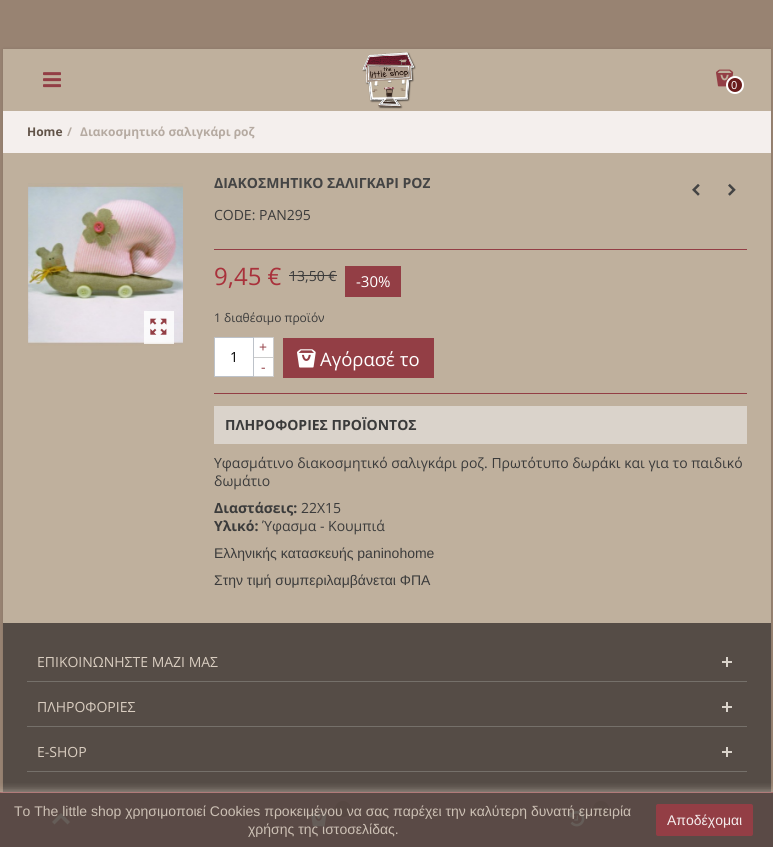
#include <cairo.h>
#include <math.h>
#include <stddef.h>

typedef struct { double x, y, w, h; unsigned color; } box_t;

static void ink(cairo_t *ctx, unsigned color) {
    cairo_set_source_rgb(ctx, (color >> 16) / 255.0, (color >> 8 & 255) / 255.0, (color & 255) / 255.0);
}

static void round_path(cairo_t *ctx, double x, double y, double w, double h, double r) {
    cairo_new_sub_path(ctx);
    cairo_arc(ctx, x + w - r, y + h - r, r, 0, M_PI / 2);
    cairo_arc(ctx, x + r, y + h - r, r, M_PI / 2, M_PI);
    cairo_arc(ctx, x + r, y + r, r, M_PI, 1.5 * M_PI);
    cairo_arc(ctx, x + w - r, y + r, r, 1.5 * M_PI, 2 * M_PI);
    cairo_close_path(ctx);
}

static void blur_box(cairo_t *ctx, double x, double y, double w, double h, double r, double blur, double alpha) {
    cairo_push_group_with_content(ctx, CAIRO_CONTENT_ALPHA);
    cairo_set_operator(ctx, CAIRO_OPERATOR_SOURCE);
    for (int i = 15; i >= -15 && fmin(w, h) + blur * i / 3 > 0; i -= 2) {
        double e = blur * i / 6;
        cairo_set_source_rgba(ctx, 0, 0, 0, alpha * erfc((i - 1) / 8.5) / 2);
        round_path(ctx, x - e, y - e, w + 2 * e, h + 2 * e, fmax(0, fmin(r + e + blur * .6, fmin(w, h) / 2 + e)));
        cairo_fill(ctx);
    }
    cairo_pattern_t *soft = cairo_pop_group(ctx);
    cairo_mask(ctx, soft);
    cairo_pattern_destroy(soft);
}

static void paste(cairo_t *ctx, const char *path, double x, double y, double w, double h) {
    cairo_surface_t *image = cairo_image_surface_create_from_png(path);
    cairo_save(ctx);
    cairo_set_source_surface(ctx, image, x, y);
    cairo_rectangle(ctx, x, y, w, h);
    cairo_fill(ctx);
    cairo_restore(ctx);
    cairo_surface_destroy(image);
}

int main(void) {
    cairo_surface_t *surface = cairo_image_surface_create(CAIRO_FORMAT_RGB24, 773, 847);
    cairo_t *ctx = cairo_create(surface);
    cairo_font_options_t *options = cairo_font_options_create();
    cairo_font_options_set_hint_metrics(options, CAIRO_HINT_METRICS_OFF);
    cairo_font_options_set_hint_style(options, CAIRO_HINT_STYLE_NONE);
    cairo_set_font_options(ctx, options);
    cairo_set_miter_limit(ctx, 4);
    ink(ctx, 0x988372);
    cairo_paint(ctx);
    ink(ctx, 0x000000);
    blur_box(ctx, 3, 49, 768, 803, 0, 1.5, 0.1);
    ink(ctx, 0xBFB09D);
    cairo_rectangle(ctx, 3, 49, 768, 574);
    cairo_fill(ctx);
    paste(ctx, "media/1.png", 43, 72, 18, 16);
    paste(ctx, "media/2.png", 362, 52, 54, 57);
    paste(ctx, "media/3.png", 716, 69, 18, 18);
    ink(ctx, 0x691A1A);
    cairo_arc(ctx, 735, 85, 8, 0, 2 * M_PI);
    cairo_fill_preserve(ctx);
    ink(ctx, 0xFFFFFF);
    cairo_stroke(ctx);
    cairo_select_font_face(ctx, "Open Sans", CAIRO_FONT_SLANT_NORMAL, CAIRO_FONT_WEIGHT_NORMAL);
    cairo_set_font_size(ctx, 11);
    cairo_move_to(ctx, 731, 89);
    cairo_show_text(ctx, "0");
    ink(ctx, 0xF4EFED);
    cairo_rectangle(ctx, 3, 111, 768, 42);
    cairo_fill(ctx);
    cairo_select_font_face(ctx, "Open Sans", CAIRO_FONT_SLANT_NORMAL, CAIRO_FONT_WEIGHT_BOLD);
    cairo_set_font_size(ctx, 12);
    ink(ctx, 0x615348);
    cairo_move_to(ctx, 27, 136);
    cairo_show_text(ctx, "Home");
    ink(ctx, 0xB5AAA1);
    cairo_move_to(ctx, 67, 136);
    cairo_show_text(ctx, "/");
    cairo_move_to(ctx, 80, 136);
    cairo_show_text(ctx, "Διακοσμητικό σαλιγκάρι ροζ");
    paste(ctx, "media/4.png", 28, 183, 155, 163);
    cairo_set_source_rgba(ctx, 1, 1, 1, 0.8);
    cairo_rectangle(ctx, 144, 311, 30, 33);
    cairo_fill(ctx);
    paste(ctx, "media/5.png", 150, 318, 17, 17);
    cairo_set_font_size(ctx, 14);
    ink(ctx, 0x444444);
    cairo_move_to(ctx, 214, 188);
    cairo_show_text(ctx, "ΔΙΑΚΟΣΜΗΤΙΚΟ ΣΑΛΙΓΚΑΡΙ ΡΟΖ");
    paste(ctx, "media/6.png", 692, 184, 8, 12);
    paste(ctx, "media/7.png", 728, 183, 8, 13);
    cairo_select_font_face(ctx, "Open Sans", CAIRO_FONT_SLANT_NORMAL, CAIRO_FONT_WEIGHT_NORMAL);
    ink(ctx, 0x3B3B3B);
    cairo_move_to(ctx, 214, 220);
    cairo_show_text(ctx, "CODE: PAN295");
    ink(ctx, 0x933E45);
    cairo_rectangle(ctx, 214, 249, 533, 1);
    cairo_fill(ctx);
    cairo_set_font_size(ctx, 24);
    ink(ctx, 0xA9313B);
    cairo_move_to(ctx, 214, 285);
    cairo_show_text(ctx, "9,45 €");
    cairo_set_font_size(ctx, 14);
    ink(ctx, 0x3B3B3B);
    cairo_move_to(ctx, 289, 281);
    cairo_show_text(ctx, "13,50 €");
    cairo_rectangle(ctx, 289, 275, 48, 1);
    cairo_fill(ctx);
    ink(ctx, 0x933E45);
    cairo_rectangle(ctx, 345, 266, 56, 31);
    cairo_fill(ctx);
    cairo_set_font_size(ctx, 15);
    ink(ctx, 0xFFFFFF);
    cairo_move_to(ctx, 356, 287);
    cairo_show_text(ctx, "-30%");
    cairo_set_font_size(ctx, 12);
    ink(ctx, 0x3B3B3B);
    cairo_move_to(ctx, 214, 322);
    cairo_show_text(ctx, "1 διαθέσιμο προϊόν");
    {
        static const box_t items[] = {
            {214, 393, 533, 1, 0x933E45},
            {254, 338, 19, 19, 0xFFFFFF},
            {254, 337, 20, 1, 0xCCCCCC},
            {273, 337, 1, 20, 0xCCCCCC},
        };
        for (size_t i = 0; i < sizeof items / sizeof *items; i++) {
            ink(ctx, items[i].color);
            cairo_rectangle(ctx, items[i].x, items[i].y, items[i].w, items[i].h);
            cairo_fill(ctx);
        }
    }
    cairo_set_font_size(ctx, 14);
    ink(ctx, 0x933E45);
    cairo_move_to(ctx, 259, 352);
    cairo_show_text(ctx, "+");
    ink(ctx, 0xFFFFFF);
    cairo_rectangle(ctx, 214.5, 337.5, 39, 39);
    cairo_fill_preserve(ctx);
    ink(ctx, 0xBDC2C9);
    cairo_set_line_width(ctx, 1);
    cairo_stroke(ctx);
    ink(ctx, 0x000000);
    cairo_move_to(ctx, 230, 362);
    cairo_show_text(ctx, "1");
    {
        static const box_t items[] = {
            {254, 358, 19, 18, 0xFFFFFF},
            {254, 357, 20, 1, 0xCCCCCC},
            {273, 357, 1, 20, 0xCCCCCC},
            {254, 376, 20, 1, 0xCCCCCC},
        };
        for (size_t i = 0; i < sizeof items / sizeof *items; i++) {
            ink(ctx, items[i].color);
            cairo_rectangle(ctx, items[i].x, items[i].y, items[i].w, items[i].h);
            cairo_fill(ctx);
        }
    }
    ink(ctx, 0x933E45);
    cairo_move_to(ctx, 261, 372);
    cairo_show_text(ctx, "-");
    cairo_rectangle(ctx, 283, 338, 151, 40);
    cairo_fill(ctx);
    paste(ctx, "media/8.png", 297, 349, 19, 19);
    cairo_set_font_size(ctx, 18.5);
    ink(ctx, 0xFFFFFF);
    cairo_move_to(ctx, 320, 366);
    cairo_show_text(ctx, "Αγόρασέ το");
    ink(ctx, 0xDAD3CB);
    cairo_rectangle(ctx, 214, 406, 533, 38);
    cairo_fill(ctx);
    cairo_select_font_face(ctx, "Open Sans", CAIRO_FONT_SLANT_NORMAL, CAIRO_FONT_WEIGHT_BOLD);
    cairo_set_font_size(ctx, 14);
    ink(ctx, 0x3B3B3B);
    cairo_move_to(ctx, 225, 430);
    cairo_show_text(ctx, "ΠΛΗΡΟΦΟΡΙΕΣ ΠΡΟΪΟΝΤΟΣ");
    cairo_select_font_face(ctx, "Open Sans", CAIRO_FONT_SLANT_NORMAL, CAIRO_FONT_WEIGHT_NORMAL);
    cairo_move_to(ctx, 214, 468);
    cairo_show_text(ctx, "Υφασμάτινο διακοσμητικό σαλιγκάρι ροζ. Πρωτότυπο δωράκι και για το παιδικό");
    cairo_move_to(ctx, 214, 486);
    cairo_show_text(ctx, "δωμάτιο");
    cairo_select_font_face(ctx, "Open Sans", CAIRO_FONT_SLANT_NORMAL, CAIRO_FONT_WEIGHT_BOLD);
    cairo_move_to(ctx, 214, 513);
    cairo_show_text(ctx, "Διαστάσεις:");
    cairo_select_font_face(ctx, "Open Sans", CAIRO_FONT_SLANT_NORMAL, CAIRO_FONT_WEIGHT_NORMAL);
    cairo_move_to(ctx, 301, 513);
    cairo_show_text(ctx, "22Χ15");
    cairo_select_font_face(ctx, "Open Sans", CAIRO_FONT_SLANT_NORMAL, CAIRO_FONT_WEIGHT_BOLD);
    cairo_move_to(ctx, 214, 531);
    cairo_show_text(ctx, "Υλικό:");
    cairo_select_font_face(ctx, "Open Sans", CAIRO_FONT_SLANT_NORMAL, CAIRO_FONT_WEIGHT_NORMAL);
    cairo_move_to(ctx, 262, 531);
    cairo_show_text(ctx, "Ύφασμα - Κουμπιά");
    cairo_select_font_face(ctx, "Liberation Sans", CAIRO_FONT_SLANT_NORMAL, CAIRO_FONT_WEIGHT_NORMAL);
    cairo_move_to(ctx, 214, 558);
    cairo_show_text(ctx, "Ελληνικής κατασκευής paninohome");
    cairo_move_to(ctx, 214, 585);
    cairo_show_text(ctx, "Στην τιμή συμπεριλαμβάνεται ΦΠΑ");
    ink(ctx, 0x554C46);
    cairo_rectangle(ctx, 3, 623, 768, 169);
    cairo_fill(ctx);
    ink(ctx, 0x75706A);
    cairo_rectangle(ctx, 27, 681, 720, 1);
    cairo_fill(ctx);
    cairo_select_font_face(ctx, "Open Sans", CAIRO_FONT_SLANT_NORMAL, CAIRO_FONT_WEIGHT_NORMAL);
    ink(ctx, 0xD9CDC0);
    cairo_move_to(ctx, 37, 667);
    cairo_show_text(ctx, "ΕΠΙΚΟΙΝΩΝΗΣΤΕ ΜΑΖΙ ΜΑΣ");
    paste(ctx, "media/9.png", 722, 657, 10, 10);
    ink(ctx, 0x75706A);
    cairo_rectangle(ctx, 27, 726, 720, 1);
    cairo_fill(ctx);
    ink(ctx, 0xD9CDC0);
    cairo_move_to(ctx, 37, 712);
    cairo_show_text(ctx, "ΠΛΗΡΟΦΟΡΙΕΣ");
    paste(ctx, "media/9.png", 722, 702, 10, 10);
    ink(ctx, 0x75706A);
    cairo_rectangle(ctx, 27, 771, 720, 1);
    cairo_fill(ctx);
    ink(ctx, 0xD9CDC0);
    cairo_move_to(ctx, 37, 757);
    cairo_show_text(ctx, "Ε-SHOP");
    paste(ctx, "media/9.png", 722, 747, 10, 10);
    ink(ctx, 0x933E45);
    cairo_rectangle(ctx, 0, 792, 773, 55);
    cairo_fill(ctx);
    ink(ctx, 0xFFFFFF);
    cairo_new_path(ctx);
    cairo_move_to(ctx, 52, 822);
    cairo_line_to(ctx, 61, 813);
    cairo_line_to(ctx, 70, 822);
    cairo_line_to(ctx, 67.5, 824.5);
    cairo_line_to(ctx, 61, 818);
    cairo_line_to(ctx, 54.5, 824.5);
    cairo_close_path(ctx);
    cairo_fill(ctx);
    ink(ctx, 0x691A1A);
    cairo_arc(ctx, 343, 809, 8, 0, 2 * M_PI);
    cairo_fill(ctx);
    paste(ctx, "media/10.png", 311, 811, 16, 16);
    cairo_arc(ctx, 601, 809, 8, 0, 2 * M_PI);
    cairo_fill(ctx);
    paste(ctx, "media/11.png", 569, 811, 16, 16);
    cairo_save(ctx);
    cairo_rectangle(ctx, 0, 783, 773, 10);
    cairo_clip(ctx);
    ink(ctx, 0xD9CDC0);
    blur_box(ctx, 0, 793, 773, 54, 0, 5, 0.9);
    cairo_restore(ctx);
    cairo_set_source_rgba(ctx, 0.333, 0.298, 0.275, 0.9);
    cairo_rectangle(ctx, 0, 793, 773, 54);
    cairo_fill(ctx);
    cairo_select_font_face(ctx, "Liberation Sans", CAIRO_FONT_SLANT_NORMAL, CAIRO_FONT_WEIGHT_NORMAL);
    ink(ctx, 0xCCC0B4);
    cairo_move_to(ctx, 14, 816);
    cairo_show_text(ctx, "Τo The little shop χρησιμοποιεί Cookies προκειμένου να σας παρέχει την καλύτερη δυνατή εμπειρία");
    cairo_move_to(ctx, 248, 834);
    cairo_show_text(ctx, "χρήσης της ιστοσελίδας.");
    ink(ctx, 0x933E45);
    round_path(ctx, 656, 804, 97, 32, 2);
    cairo_fill(ctx);
    ink(ctx, 0xF4ECEC);
    cairo_move_to(ctx, 667, 825);
    cairo_show_text(ctx, "Αποδέχομαι");
    cairo_surface_write_to_png(surface, "image.png");
    cairo_font_options_destroy(options);
    cairo_destroy(ctx);
    cairo_surface_destroy(surface);
    return 0;
}
